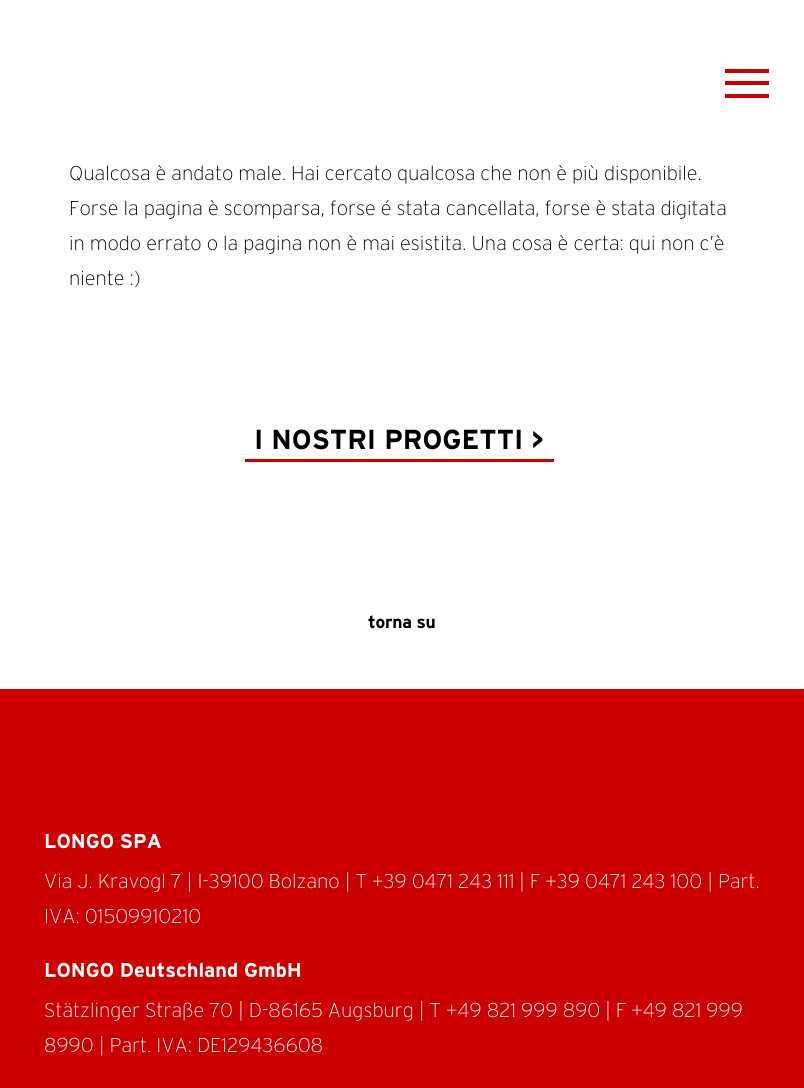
#include <cairo.h>
#include <math.h>
#include <stddef.h>

typedef struct { double x, y; const char *s; } line_t;
typedef struct { double x, y, w, h; unsigned color; } box_t;

static void ink(cairo_t *ctx, unsigned color) {
    cairo_set_source_rgb(ctx, (color >> 16) / 255.0, (color >> 8 & 255) / 255.0, (color & 255) / 255.0);
}

static void write_spaced(cairo_t *ctx, double x, double y, const char *s, double letter, double word) {
    cairo_move_to(ctx, x, y);
    while (*s) {
        char ch[5] = {0};
        int n = 0;
        do ch[n++] = *s++; while ((*s & 0xC0) == 0x80);
        cairo_show_text(ctx, ch);
        cairo_rel_move_to(ctx, letter + word * (*ch == ' '), 0);
    }
}

int main(void) {
    cairo_surface_t *surface = cairo_image_surface_create(CAIRO_FORMAT_RGB24, 804, 1088);
    cairo_t *ctx = cairo_create(surface);
    cairo_font_options_t *options = cairo_font_options_create();
    cairo_font_options_set_hint_metrics(options, CAIRO_HINT_METRICS_OFF);
    cairo_font_options_set_hint_style(options, CAIRO_HINT_STYLE_NONE);
    cairo_set_font_options(ctx, options);
    cairo_set_miter_limit(ctx, 4);
    ink(ctx, 0xFFFFFF);
    cairo_paint(ctx);
    {
        static const box_t items[] = {
            {725, 81, 44, 4, 0xCC0000},
            {725, 69, 44, 4, 0xCC0000},
            {725, 94, 44, 4, 0xCC0000},
        };
        for (size_t i = 0; i < sizeof items / sizeof *items; i++) {
            ink(ctx, items[i].color);
            cairo_rectangle(ctx, items[i].x, items[i].y, items[i].w, items[i].h);
            cairo_fill(ctx);
        }
    }
    cairo_select_font_face(ctx, "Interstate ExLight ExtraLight", CAIRO_FONT_SLANT_NORMAL, CAIRO_FONT_WEIGHT_NORMAL);
    cairo_set_font_size(ctx, 20);
    ink(ctx, 0x000000);
    {
        static const line_t items[] = {
            {69, 180, "Qualcosa è andato male. Hai cercato qualcosa che non è più disponibile."},
            {69, 215, "Forse la pagina è scomparsa, forse é stata cancellata, forse è stata digitata"},
            {69, 250, "in modo errato o la pagina non è mai esistita. Una cosa è certa: qui non c’è"},
            {69, 285, "niente :)"},
        };
        for (size_t i = 0; i < sizeof items / sizeof *items; i++) {
            cairo_move_to(ctx, items[i].x, items[i].y);
            cairo_show_text(ctx, items[i].s);
        }
    }
    cairo_select_font_face(ctx, "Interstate", CAIRO_FONT_SLANT_NORMAL, CAIRO_FONT_WEIGHT_BOLD);
    cairo_set_font_size(ctx, 27.5);
    cairo_move_to(ctx, 254, 449);
    cairo_show_text(ctx, "I NOSTRI PROGETTI >");
    ink(ctx, 0xCC0000);
    cairo_rectangle(ctx, 245, 459, 309, 3);
    cairo_fill(ctx);
    cairo_set_font_size(ctx, 17.5);
    ink(ctx, 0x000000);
    write_spaced(ctx, 368, 628, "torna su", -0.25, 0);
    ink(ctx, 0xCC0000);
    cairo_rectangle(ctx, 0, 689, 804, 399);
    cairo_fill(ctx);
    cairo_set_font_size(ctx, 20);
    ink(ctx, 0xFFFFFF);
    cairo_move_to(ctx, 44, 848);
    cairo_show_text(ctx, "LONGO SPA");
    cairo_select_font_face(ctx, "Interstate ExLight ExtraLight", CAIRO_FONT_SLANT_NORMAL, CAIRO_FONT_WEIGHT_NORMAL);
    {
        static const line_t items[] = {
            {44, 888, "Via J. Kravogl 7 | I-39100 Bolzano | T +39 0471 243 111"},
            {519, 888, "| F +39 0471 243 100 | Part."},
            {44, 923, "IVA: 01509910210"},
        };
        for (size_t i = 0; i < sizeof items / sizeof *items; i++) {
            cairo_move_to(ctx, items[i].x, items[i].y);
            cairo_show_text(ctx, items[i].s);
        }
    }
    cairo_select_font_face(ctx, "Interstate", CAIRO_FONT_SLANT_NORMAL, CAIRO_FONT_WEIGHT_BOLD);
    cairo_move_to(ctx, 44, 977);
    cairo_show_text(ctx, "LONGO Deutschland GmbH");
    cairo_select_font_face(ctx, "Interstate ExLight ExtraLight", CAIRO_FONT_SLANT_NORMAL, CAIRO_FONT_WEIGHT_NORMAL);
    {
        static const line_t items[] = {
            {44, 1017, "Stätzlinger Straße 70 | D-86165 Augsburg | T +49 821 999 890"},
            {605, 1017, "| F +49 821 999"},
            {44, 1052, "8990 | Part. IVA: DE129436608"},
        };
        for (size_t i = 0; i < sizeof items / sizeof *items; i++) {
            cairo_move_to(ctx, items[i].x, items[i].y);
            cairo_show_text(ctx, items[i].s);
        }
    }
    cairo_surface_write_to_png(surface, "image.png");
    cairo_font_options_destroy(options);
    cairo_destroy(ctx);
    cairo_surface_destroy(surface);
    return 0;
}
